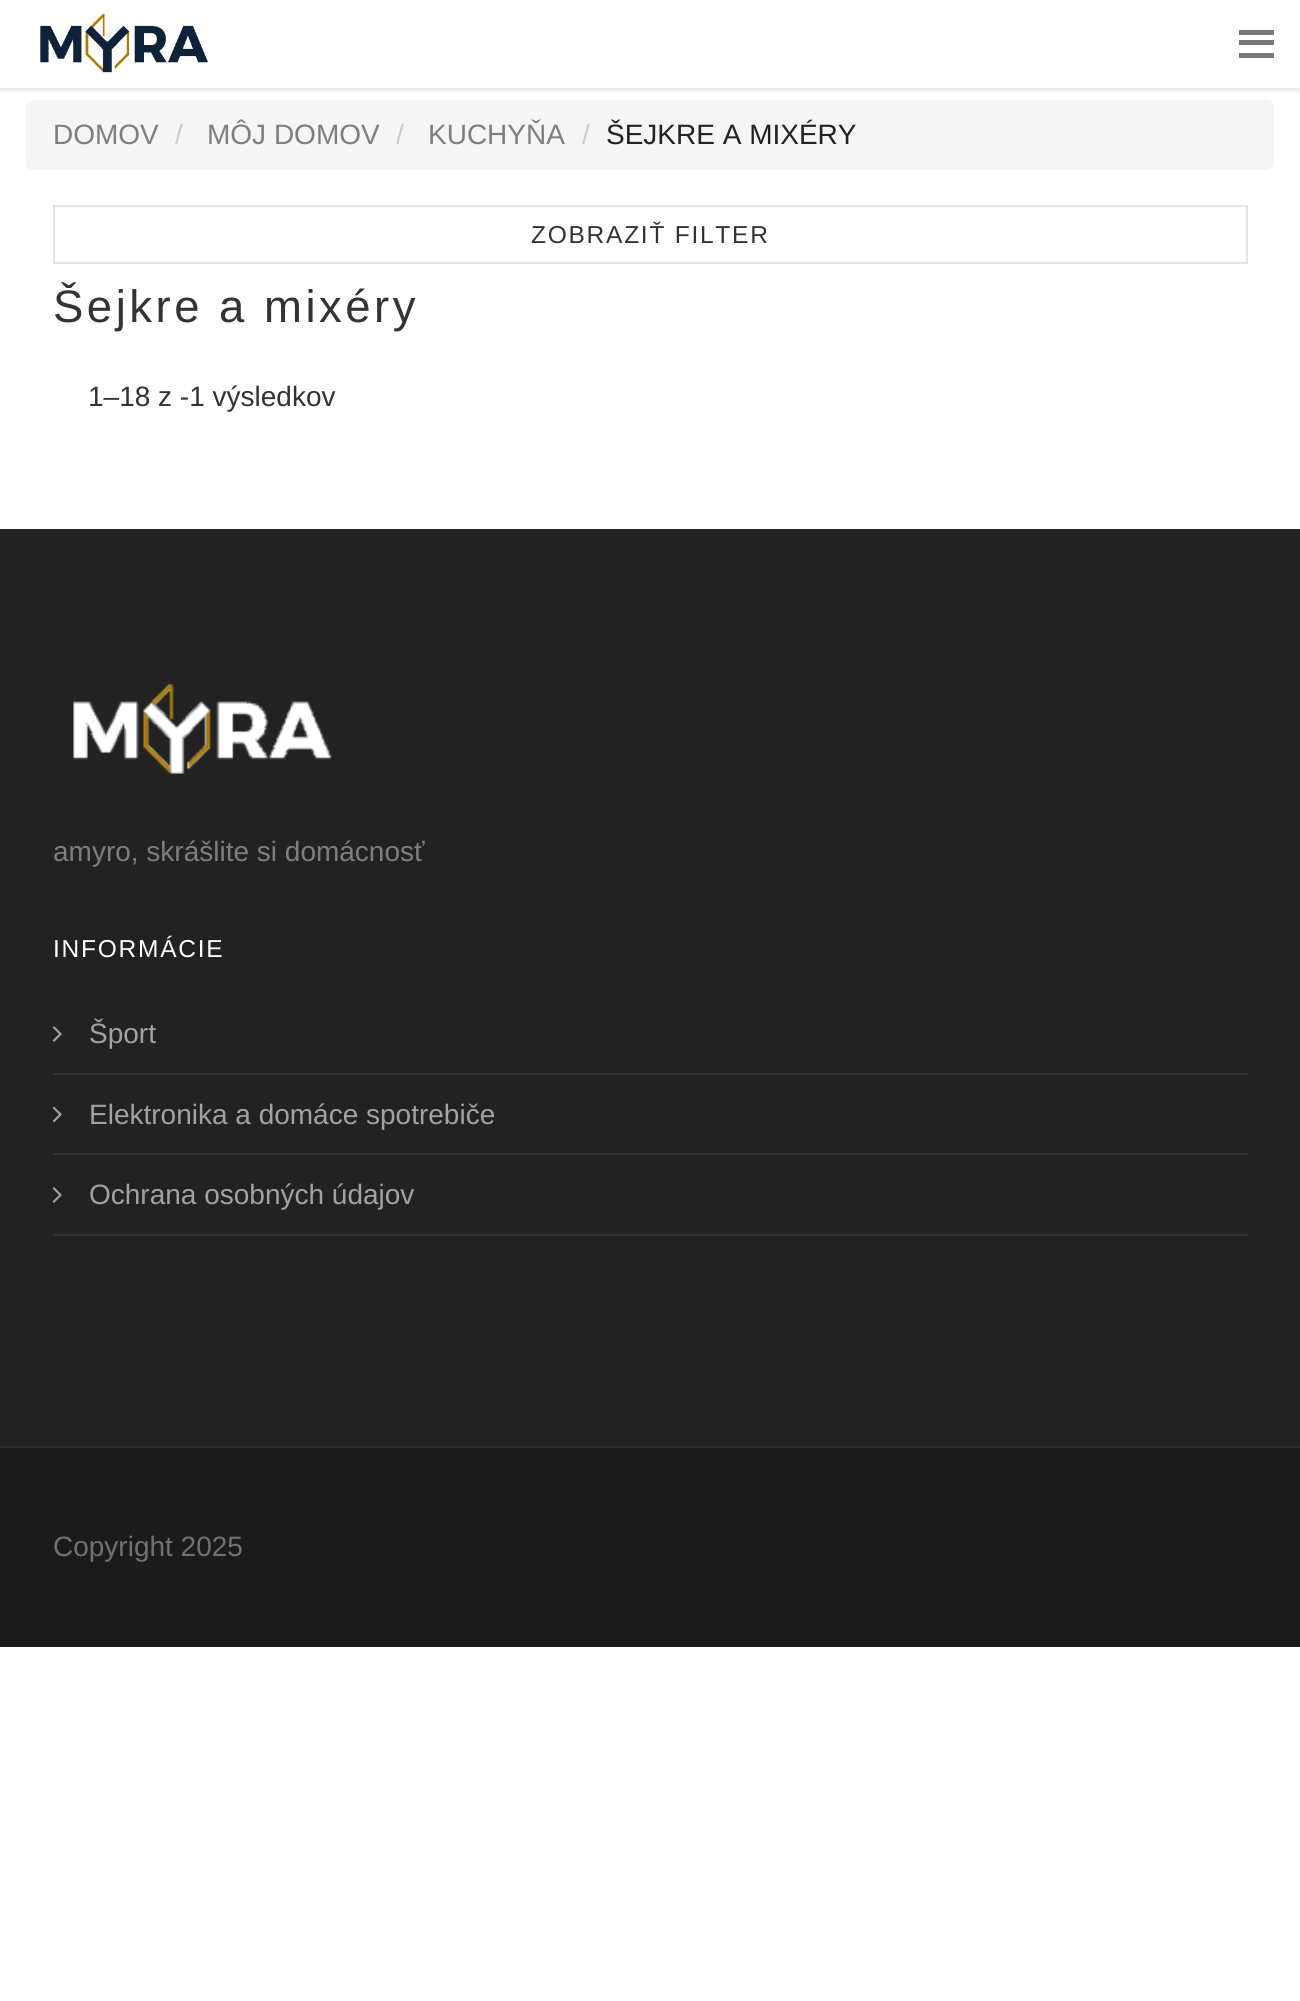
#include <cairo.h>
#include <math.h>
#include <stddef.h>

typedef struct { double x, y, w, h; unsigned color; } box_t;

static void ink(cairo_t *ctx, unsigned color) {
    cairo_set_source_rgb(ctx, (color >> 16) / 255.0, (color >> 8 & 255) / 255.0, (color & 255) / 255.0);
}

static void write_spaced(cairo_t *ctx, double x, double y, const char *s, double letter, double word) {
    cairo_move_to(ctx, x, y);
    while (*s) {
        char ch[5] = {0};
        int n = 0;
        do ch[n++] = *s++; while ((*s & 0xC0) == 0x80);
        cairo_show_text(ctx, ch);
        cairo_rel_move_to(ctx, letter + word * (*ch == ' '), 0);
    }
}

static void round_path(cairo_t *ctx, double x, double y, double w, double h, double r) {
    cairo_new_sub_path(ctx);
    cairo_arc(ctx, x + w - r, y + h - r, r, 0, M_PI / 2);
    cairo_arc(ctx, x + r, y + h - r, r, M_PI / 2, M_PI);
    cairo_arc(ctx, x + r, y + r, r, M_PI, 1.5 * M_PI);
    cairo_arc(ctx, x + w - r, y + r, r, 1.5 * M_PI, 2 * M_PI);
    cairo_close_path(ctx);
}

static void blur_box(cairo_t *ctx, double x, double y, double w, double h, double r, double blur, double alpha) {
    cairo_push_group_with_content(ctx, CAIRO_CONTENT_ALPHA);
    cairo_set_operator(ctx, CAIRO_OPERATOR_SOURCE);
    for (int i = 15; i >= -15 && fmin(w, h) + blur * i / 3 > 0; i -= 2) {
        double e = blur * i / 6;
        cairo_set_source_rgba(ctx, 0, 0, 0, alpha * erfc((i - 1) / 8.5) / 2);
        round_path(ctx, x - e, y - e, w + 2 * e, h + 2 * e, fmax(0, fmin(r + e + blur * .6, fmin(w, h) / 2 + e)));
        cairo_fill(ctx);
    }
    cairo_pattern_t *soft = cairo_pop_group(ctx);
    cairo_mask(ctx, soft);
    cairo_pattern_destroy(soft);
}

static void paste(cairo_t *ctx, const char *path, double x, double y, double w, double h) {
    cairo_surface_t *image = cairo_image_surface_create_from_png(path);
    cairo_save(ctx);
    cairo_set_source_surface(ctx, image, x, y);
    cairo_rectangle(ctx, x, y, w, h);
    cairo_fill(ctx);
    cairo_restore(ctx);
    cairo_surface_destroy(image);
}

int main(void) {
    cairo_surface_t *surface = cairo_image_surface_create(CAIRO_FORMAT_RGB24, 1300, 2001);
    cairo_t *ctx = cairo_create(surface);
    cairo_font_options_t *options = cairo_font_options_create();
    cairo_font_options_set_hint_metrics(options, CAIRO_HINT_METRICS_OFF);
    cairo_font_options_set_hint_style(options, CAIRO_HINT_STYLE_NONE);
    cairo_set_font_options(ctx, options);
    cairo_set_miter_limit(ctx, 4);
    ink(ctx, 0xFFFFFF);
    cairo_paint(ctx);
    ink(ctx, 0x000000);
    blur_box(ctx, 0, 4, 1300, 87, 0, 2, 0.1);
    ink(ctx, 0xFFFFFF);
    cairo_rectangle(ctx, 0, 1, 1300, 87);
    cairo_fill(ctx);
    paste(ctx, "media/1.png", 40, 13, 168, 60);
    {
        static const box_t items[] = {
            {1239, 30, 35, 5, 0x777777},
            {1239, 40, 35, 5, 0x777777},
            {1239, 53, 35, 5, 0x777777},
        };
        for (size_t i = 0; i < sizeof items / sizeof *items; i++) {
            ink(ctx, items[i].color);
            cairo_rectangle(ctx, items[i].x, items[i].y, items[i].w, items[i].h);
            cairo_fill(ctx);
        }
    }
    ink(ctx, 0xF5F5F5);
    round_path(ctx, 26, 100, 1248, 70, 7);
    cairo_fill(ctx);
    cairo_select_font_face(ctx, "Liberation Sans", CAIRO_FONT_SLANT_NORMAL, CAIRO_FONT_WEIGHT_NORMAL);
    cairo_set_font_size(ctx, 28);
    ink(ctx, 0x7E7E7E);
    cairo_move_to(ctx, 53, 144);
    cairo_show_text(ctx, "DOMOV");
    ink(ctx, 0xCCCCCC);
    cairo_move_to(ctx, 175, 144);
    cairo_show_text(ctx, "/");
    ink(ctx, 0x7E7E7E);
    cairo_move_to(ctx, 207, 144);
    cairo_show_text(ctx, "MÔJ DOMOV");
    ink(ctx, 0xCCCCCC);
    cairo_move_to(ctx, 396, 144);
    cairo_show_text(ctx, "/");
    ink(ctx, 0x7E7E7E);
    cairo_move_to(ctx, 428, 144);
    cairo_show_text(ctx, "KUCHYŇA");
    ink(ctx, 0xCCCCCC);
    cairo_move_to(ctx, 582, 144);
    cairo_show_text(ctx, "/");
    ink(ctx, 0x222222);
    cairo_move_to(ctx, 606, 144);
    cairo_show_text(ctx, "ŠEJKRE A MIXÉRY");
    cairo_rectangle(ctx, 54, 206, 1193, 57);
    ink(ctx, 0xE5E5E5);
    cairo_stroke(ctx);
    cairo_set_font_size(ctx, 24.5);
    ink(ctx, 0x333333);
    write_spaced(ctx, 531, 243, "ZOBRAZIŤ FILTER", 1.75, 0);
    cairo_set_font_size(ctx, 45.5);
    write_spaced(ctx, 53, 322, "Šejkre a mixéry", 3.5, 0);
    cairo_set_font_size(ctx, 28);
    cairo_move_to(ctx, 88, 406);
    cairo_show_text(ctx, "1–18 z -1 výsledkov");
    ink(ctx, 0x222222);
    cairo_rectangle(ctx, 0, 529, 1300, 917);
    cairo_fill(ctx);
    paste(ctx, "media/2.png", 73, 683, 259, 91);
    ink(ctx, 0x7E7E7E);
    cairo_move_to(ctx, 53, 861);
    cairo_show_text(ctx, "amyro, skrášlite si domácnosť");
    cairo_set_font_size(ctx, 24.5);
    ink(ctx, 0xFFFFFF);
    write_spaced(ctx, 53, 957, "INFORMÁCIE", 1.75, 0);
    ink(ctx, 0x333333);
    cairo_rectangle(ctx, 53, 1073, 1195, 2);
    cairo_fill(ctx);
    paste(ctx, "media/3.png", 52, 1026, 10, 16);
    cairo_set_font_size(ctx, 28);
    ink(ctx, 0xA2A2A2);
    cairo_move_to(ctx, 89, 1043);
    cairo_show_text(ctx, "Šport");
    ink(ctx, 0x333333);
    cairo_rectangle(ctx, 53, 1153, 1195, 2);
    cairo_fill(ctx);
    paste(ctx, "media/4.png", 52, 1106, 10, 17);
    ink(ctx, 0xA2A2A2);
    cairo_move_to(ctx, 89, 1124);
    cairo_show_text(ctx, "Elektronika a domáce spotrebiče");
    ink(ctx, 0x333333);
    cairo_rectangle(ctx, 53, 1234, 1195, 2);
    cairo_fill(ctx);
    paste(ctx, "media/3.png", 52, 1187, 10, 16);
    ink(ctx, 0xA2A2A2);
    cairo_move_to(ctx, 89, 1204);
    cairo_show_text(ctx, "Ochrana osobných údajov");
    ink(ctx, 0x1B1B1B);
    cairo_rectangle(ctx, 0, 1448, 1300, 199);
    cairo_fill(ctx);
    ink(ctx, 0x2C2C2C);
    cairo_rectangle(ctx, 0, 1446, 1300, 2);
    cairo_fill(ctx);
    ink(ctx, 0x6F7273);
    cairo_move_to(ctx, 53, 1556);
    cairo_show_text(ctx, "Copyright 2025");
    cairo_surface_write_to_png(surface, "image.png");
    cairo_font_options_destroy(options);
    cairo_destroy(ctx);
    cairo_surface_destroy(surface);
    return 0;
}
